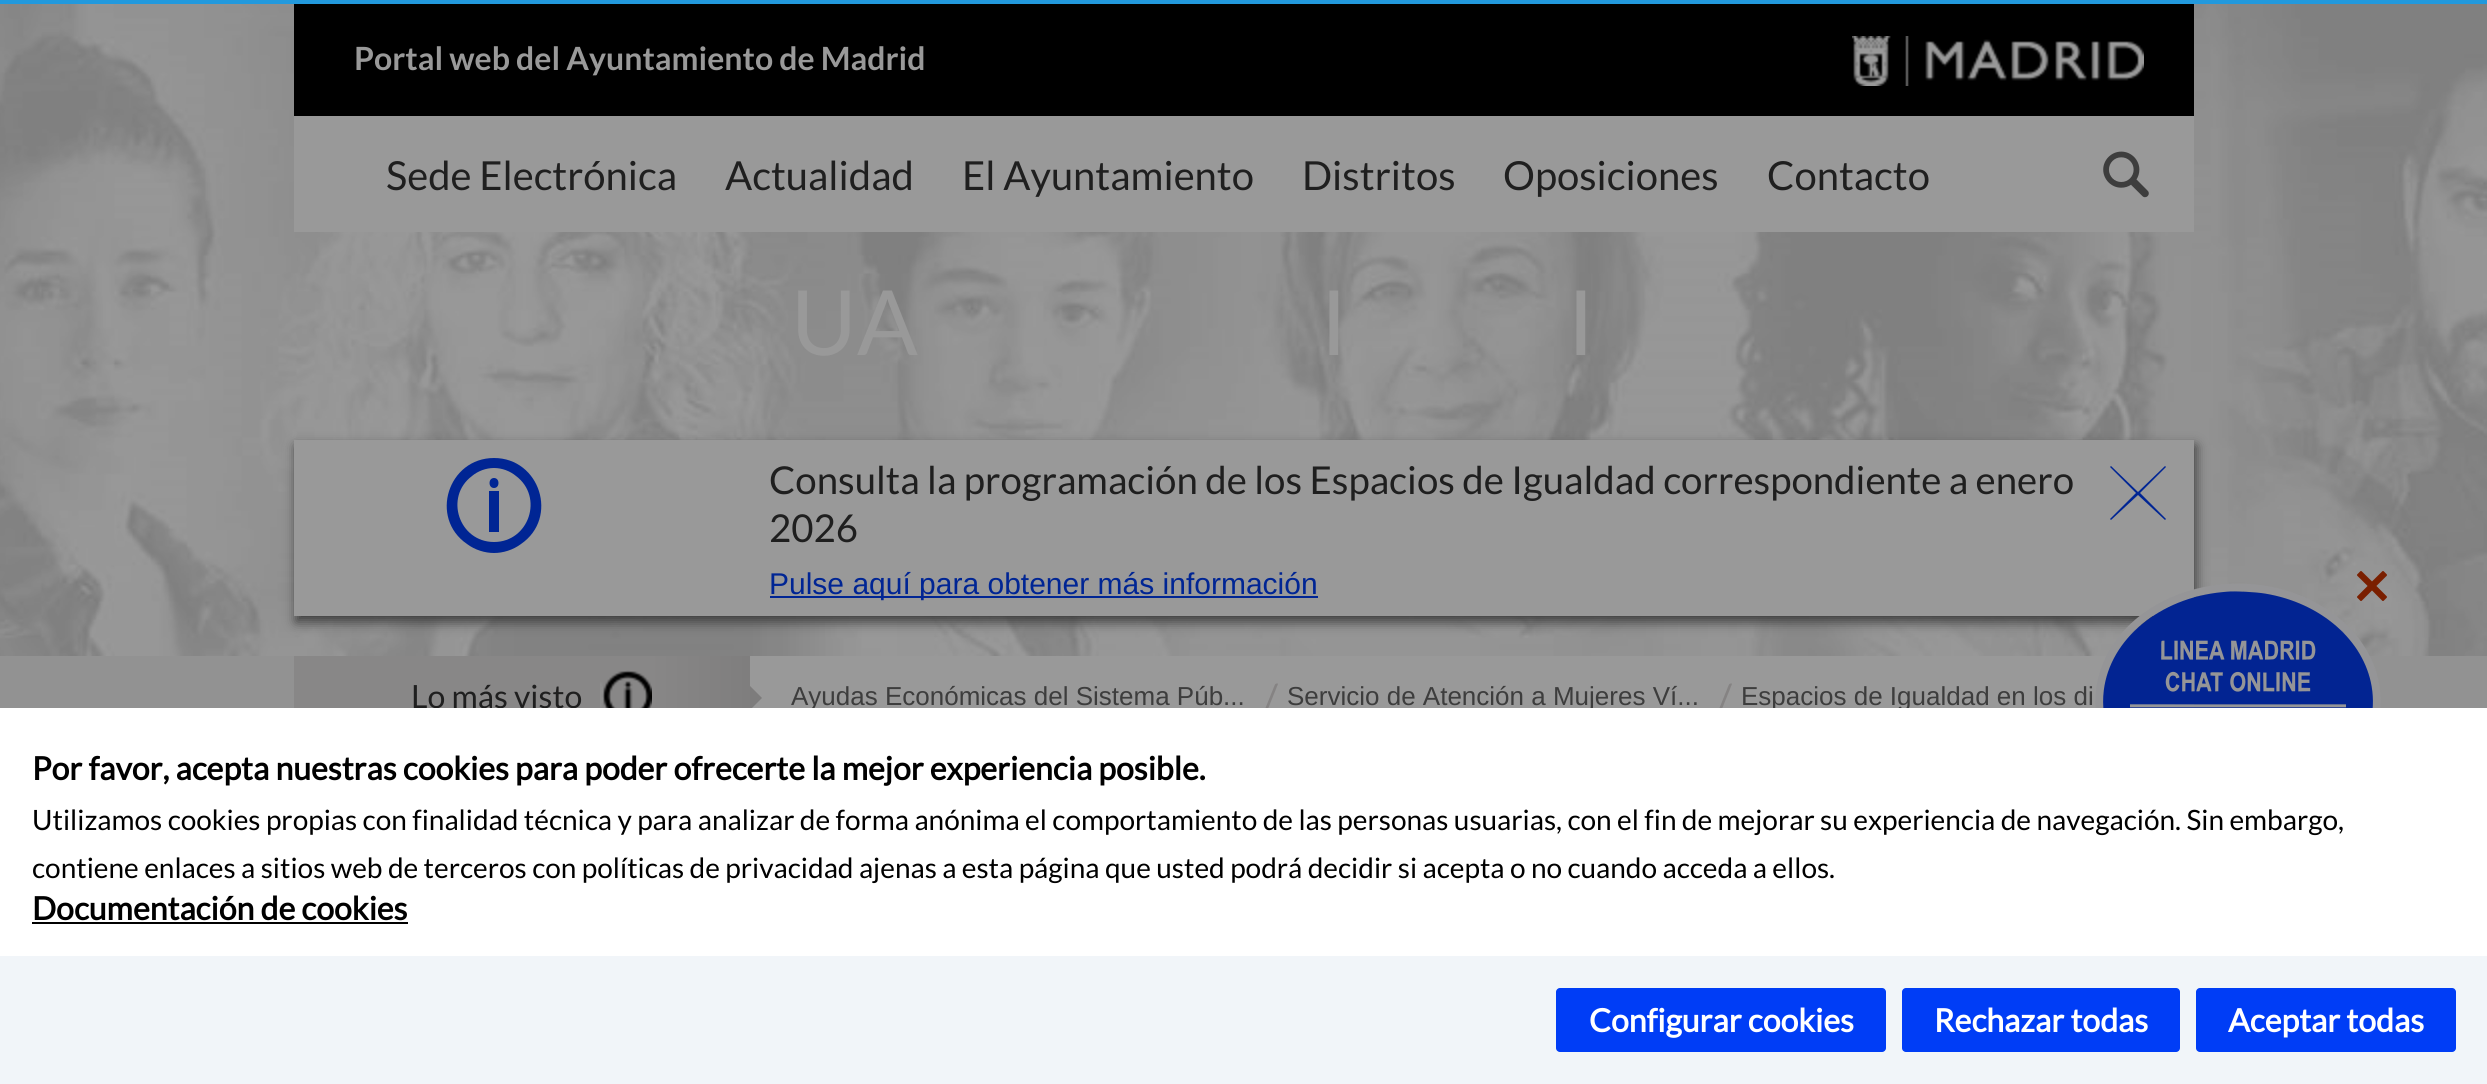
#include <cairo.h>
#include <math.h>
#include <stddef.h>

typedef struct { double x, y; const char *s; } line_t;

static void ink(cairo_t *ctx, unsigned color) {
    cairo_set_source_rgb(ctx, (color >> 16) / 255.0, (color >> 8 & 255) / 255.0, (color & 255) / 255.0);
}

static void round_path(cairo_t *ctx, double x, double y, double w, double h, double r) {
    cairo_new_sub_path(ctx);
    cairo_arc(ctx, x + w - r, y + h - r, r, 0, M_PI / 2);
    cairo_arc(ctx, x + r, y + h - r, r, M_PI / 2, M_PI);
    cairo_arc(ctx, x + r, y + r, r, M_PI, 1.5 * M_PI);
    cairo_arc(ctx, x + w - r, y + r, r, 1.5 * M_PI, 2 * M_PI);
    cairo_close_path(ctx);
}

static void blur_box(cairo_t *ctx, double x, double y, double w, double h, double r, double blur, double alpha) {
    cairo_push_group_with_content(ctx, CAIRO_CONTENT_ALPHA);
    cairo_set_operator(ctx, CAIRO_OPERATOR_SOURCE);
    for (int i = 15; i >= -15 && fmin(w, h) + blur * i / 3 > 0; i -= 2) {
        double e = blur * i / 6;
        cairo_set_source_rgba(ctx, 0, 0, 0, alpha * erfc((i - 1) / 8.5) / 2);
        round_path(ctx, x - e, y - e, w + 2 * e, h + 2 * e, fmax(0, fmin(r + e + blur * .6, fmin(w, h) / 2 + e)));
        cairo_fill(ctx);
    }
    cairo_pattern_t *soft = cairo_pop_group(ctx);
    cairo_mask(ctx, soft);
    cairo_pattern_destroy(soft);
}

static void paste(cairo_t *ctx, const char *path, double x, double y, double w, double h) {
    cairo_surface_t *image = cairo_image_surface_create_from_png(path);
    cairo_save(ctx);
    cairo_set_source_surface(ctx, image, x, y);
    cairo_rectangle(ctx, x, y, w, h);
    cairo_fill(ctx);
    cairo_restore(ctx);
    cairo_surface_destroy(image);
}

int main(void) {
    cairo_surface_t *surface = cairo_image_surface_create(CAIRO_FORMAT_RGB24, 2487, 1084);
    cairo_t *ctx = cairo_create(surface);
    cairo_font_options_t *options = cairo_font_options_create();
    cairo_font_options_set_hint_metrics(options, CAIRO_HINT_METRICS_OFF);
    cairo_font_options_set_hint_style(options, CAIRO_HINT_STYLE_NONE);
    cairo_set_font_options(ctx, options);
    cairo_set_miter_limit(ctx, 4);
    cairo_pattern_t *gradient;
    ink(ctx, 0x929292);
    cairo_paint(ctx);
    ink(ctx, 0x2299DD);
    cairo_rectangle(ctx, 0, 0, 2487, 4);
    cairo_fill(ctx);
    paste(ctx, "media/1.png", 0, 4, 2487, 652);
    ink(ctx, 0x000000);
    cairo_rectangle(ctx, 294, 4, 1900, 112);
    cairo_fill(ctx);
    cairo_select_font_face(ctx, "Lato", CAIRO_FONT_SLANT_NORMAL, CAIRO_FONT_WEIGHT_BOLD);
    cairo_set_font_size(ctx, 32);
    ink(ctx, 0x999999);
    cairo_move_to(ctx, 354, 70);
    cairo_show_text(ctx, "Portal web del Ayuntamiento de Madrid");
    paste(ctx, "media/2.png", 1852, 36, 292, 50);
    cairo_rectangle(ctx, 294, 116, 1900, 116);
    cairo_fill(ctx);
    cairo_select_font_face(ctx, "Lato", CAIRO_FONT_SLANT_NORMAL, CAIRO_FONT_WEIGHT_NORMAL);
    cairo_set_font_size(ctx, 40);
    ink(ctx, 0x1F1F1F);
    {
        static const line_t items[] = {
            {386, 190, "Sede Electrónica"},
            {725, 190, "Actualidad"},
            {962, 190, "El Ayuntamiento"},
            {1302, 190, "Distritos"},
            {1503, 190, "Oposiciones"},
            {1767, 190, "Contacto"},
        };
        for (size_t i = 0; i < sizeof items / sizeof *items; i++) {
            cairo_move_to(ctx, items[i].x, items[i].y);
            cairo_show_text(ctx, items[i].s);
        }
    }
    paste(ctx, "media/3.png", 2103, 151, 46, 47);
    cairo_set_font_size(ctx, 90);
    ink(ctx, 0x999999);
    {
        static const line_t items[] = {
            {791, 355, "UA"},
            {1320, 355, "I"},
            {1567, 355, "I"},
        };
        for (size_t i = 0; i < sizeof items / sizeof *items; i++) {
            cairo_move_to(ctx, items[i].x, items[i].y);
            cairo_show_text(ctx, items[i].s);
        }
    }
    ink(ctx, 0x3D3D3D);
    blur_box(ctx, 296, 446, 1900, 176, 0, 6, 1);
    ink(ctx, 0x999999);
    cairo_rectangle(ctx, 294, 440, 1900, 176);
    cairo_fill(ctx);
    ink(ctx, 0x002594);
    cairo_new_path(ctx);
    cairo_move_to(ctx, 489, 532);
    cairo_line_to(ctx, 499, 532);
    cairo_line_to(ctx, 499, 491);
    cairo_line_to(ctx, 489, 491);
    cairo_close_path(ctx);
    cairo_move_to(ctx, 494, 488);
    cairo_curve_to(ctx, 500, 488, 500, 478, 494, 478);
    cairo_curve_to(ctx, 488, 478, 488, 488, 494, 488);
    cairo_close_path(ctx);
    cairo_move_to(ctx, 494, 458);
    cairo_curve_to(ctx, 448, 458, 429, 518, 467, 544);
    cairo_curve_to(ctx, 475, 550, 485, 553, 494, 553);
    cairo_curve_to(ctx, 503, 553, 513, 550, 521, 544);
    cairo_curve_to(ctx, 559, 518, 540, 458, 494, 458);
    cairo_close_path(ctx);
    cairo_move_to(ctx, 494, 542);
    cairo_curve_to(ctx, 459, 542, 444, 497, 472, 476);
    cairo_curve_to(ctx, 478, 471, 486, 468, 494, 468);
    cairo_curve_to(ctx, 502, 468, 510, 471, 516, 476);
    cairo_curve_to(ctx, 544, 497, 529, 542, 494, 542);
    cairo_close_path(ctx);
    cairo_fill(ctx);
    cairo_set_font_size(ctx, 38.4);
    ink(ctx, 0x1F1F1F);
    cairo_move_to(ctx, 769, 494);
    cairo_show_text(ctx, "Consulta la programación de los Espacios de Igualdad correspondiente a enero");
    cairo_move_to(ctx, 769, 542);
    cairo_show_text(ctx, "2026");
    ink(ctx, 0x002594);
    cairo_new_path(ctx);
    cairo_move_to(ctx, 2166, 467);
    cairo_line_to(ctx, 2165, 466);
    cairo_line_to(ctx, 2138, 492);
    cairo_line_to(ctx, 2111, 466);
    cairo_line_to(ctx, 2110, 467);
    cairo_line_to(ctx, 2136, 493);
    cairo_line_to(ctx, 2110, 519);
    cairo_line_to(ctx, 2111, 520);
    cairo_line_to(ctx, 2138, 495);
    cairo_line_to(ctx, 2165, 520);
    cairo_line_to(ctx, 2166, 519);
    cairo_line_to(ctx, 2140, 493);
    cairo_close_path(ctx);
    cairo_fill(ctx);
    cairo_rectangle(ctx, 770, 596, 548, 2);
    cairo_fill(ctx);
    cairo_select_font_face(ctx, "Liberation Sans", CAIRO_FONT_SLANT_NORMAL, CAIRO_FONT_WEIGHT_NORMAL);
    cairo_set_font_size(ctx, 30);
    cairo_move_to(ctx, 769, 594);
    cairo_show_text(ctx, "Pulse aquí para obtener más información");
    gradient = cairo_pattern_create_linear(294, 697, 770, 697);
    cairo_pattern_add_color_stop_rgba(gradient, 0, 0.533, 0.529, 0.529, 1);
    cairo_pattern_add_color_stop_rgba(gradient, 0.75, 0.533, 0.529, 0.529, 1);
    cairo_pattern_add_color_stop_rgba(gradient, 1, 0.49, 0.486, 0.486, 1);
    cairo_set_source(ctx, gradient);
    cairo_pattern_destroy(gradient);
    cairo_rectangle(ctx, 294, 656, 456, 52);
    cairo_fill(ctx);
    cairo_select_font_face(ctx, "Lato", CAIRO_FONT_SLANT_NORMAL, CAIRO_FONT_WEIGHT_NORMAL);
    cairo_set_font_size(ctx, 32);
    ink(ctx, 0x1F1F1F);
    cairo_move_to(ctx, 411, 708);
    cairo_show_text(ctx, "Lo más visto");
    paste(ctx, "media/4.png", 600, 670, 52, 38);
    ink(ctx, 0x999999);
    cairo_rectangle(ctx, 750, 656, 1444, 52);
    cairo_fill(ctx);
    ink(ctx, 0x7D7C7C);
    cairo_new_path(ctx);
    cairo_move_to(ctx, 750, 710);
    cairo_line_to(ctx, 750, 686);
    cairo_line_to(ctx, 762, 698);
    cairo_close_path(ctx);
    cairo_fill(ctx);
    cairo_select_font_face(ctx, "Liberation Sans", CAIRO_FONT_SLANT_NORMAL, CAIRO_FONT_WEIGHT_NORMAL);
    cairo_set_font_size(ctx, 26);
    ink(ctx, 0x3D3D3D);
    cairo_move_to(ctx, 791, 705);
    cairo_show_text(ctx, "Ayudas Económicas del Sistema Púb...");
    cairo_select_font_face(ctx, "Lato", CAIRO_FONT_SLANT_NORMAL, CAIRO_FONT_WEIGHT_NORMAL);
    cairo_set_font_size(ctx, 40);
    ink(ctx, 0x858383);
    cairo_move_to(ctx, 1263, 713);
    cairo_show_text(ctx, "/");
    cairo_select_font_face(ctx, "Liberation Sans", CAIRO_FONT_SLANT_NORMAL, CAIRO_FONT_WEIGHT_NORMAL);
    cairo_set_font_size(ctx, 26);
    ink(ctx, 0x3D3D3D);
    cairo_move_to(ctx, 1287, 705);
    cairo_show_text(ctx, "Servicio de Atención a Mujeres Ví...");
    cairo_select_font_face(ctx, "Lato", CAIRO_FONT_SLANT_NORMAL, CAIRO_FONT_WEIGHT_NORMAL);
    cairo_set_font_size(ctx, 40);
    ink(ctx, 0x858383);
    cairo_move_to(ctx, 1717, 713);
    cairo_show_text(ctx, "/");
    cairo_select_font_face(ctx, "Liberation Sans", CAIRO_FONT_SLANT_NORMAL, CAIRO_FONT_WEIGHT_NORMAL);
    cairo_set_font_size(ctx, 26);
    ink(ctx, 0x3D3D3D);
    cairo_move_to(ctx, 1741, 705);
    cairo_show_text(ctx, "Espacios de Igualdad en los di");
    paste(ctx, "media/6.png", 2095, 583, 286, 125);
    paste(ctx, "media/5.png", 2357, 571, 30, 30);
    ink(ctx, 0xFFFFFF);
    cairo_rectangle(ctx, 0, 708, 2487, 248);
    cairo_fill(ctx);
    cairo_select_font_face(ctx, "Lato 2", CAIRO_FONT_SLANT_NORMAL, CAIRO_FONT_WEIGHT_BOLD);
    cairo_set_font_size(ctx, 32);
    ink(ctx, 0x000000);
    cairo_move_to(ctx, 32, 780);
    cairo_show_text(ctx, "Por favor, acepta nuestras cookies para poder ofrecerte la mejor experiencia posible.");
    cairo_select_font_face(ctx, "Lato", CAIRO_FONT_SLANT_NORMAL, CAIRO_FONT_WEIGHT_NORMAL);
    cairo_set_font_size(ctx, 28);
    cairo_move_to(ctx, 32, 830);
    cairo_show_text(ctx, "Utilizamos cookies propias con finalidad técnica y para analizar de forma anónima el comportamiento de las personas usuarias, con el fin de mejorar su experiencia de navegación. Sin embargo,");
    cairo_move_to(ctx, 32, 878);
    cairo_show_text(ctx, "contiene enlaces a sitios web de terceros con políticas de privacidad ajenas a esta página que usted podrá decidir si acepta o no cuando acceda a ellos.");
    cairo_select_font_face(ctx, "Lato 2", CAIRO_FONT_SLANT_NORMAL, CAIRO_FONT_WEIGHT_BOLD);
    cairo_set_font_size(ctx, 32);
    cairo_move_to(ctx, 32, 920);
    cairo_show_text(ctx, "Documentación de cookies");
    cairo_rectangle(ctx, 32, 922, 376, 2);
    cairo_fill(ctx);
    ink(ctx, 0xF1F5F9);
    cairo_rectangle(ctx, 0, 956, 2487, 128);
    cairo_fill(ctx);
    ink(ctx, 0x003DF6);
    round_path(ctx, 1556, 988, 330, 64, 4);
    cairo_fill(ctx);
    ink(ctx, 0xFFFFFF);
    cairo_move_to(ctx, 1589, 1032);
    cairo_show_text(ctx, "Configurar cookies");
    ink(ctx, 0x003DF6);
    round_path(ctx, 1902, 988, 278, 64, 4);
    cairo_fill(ctx);
    ink(ctx, 0xFFFFFF);
    cairo_move_to(ctx, 1934, 1032);
    cairo_show_text(ctx, "Rechazar todas");
    ink(ctx, 0x003DF6);
    round_path(ctx, 2196, 988, 260, 64, 4);
    cairo_fill(ctx);
    ink(ctx, 0xFFFFFF);
    cairo_move_to(ctx, 2228, 1032);
    cairo_show_text(ctx, "Aceptar todas");
    cairo_surface_write_to_png(surface, "image.png");
    cairo_font_options_destroy(options);
    cairo_destroy(ctx);
    cairo_surface_destroy(surface);
    return 0;
}
